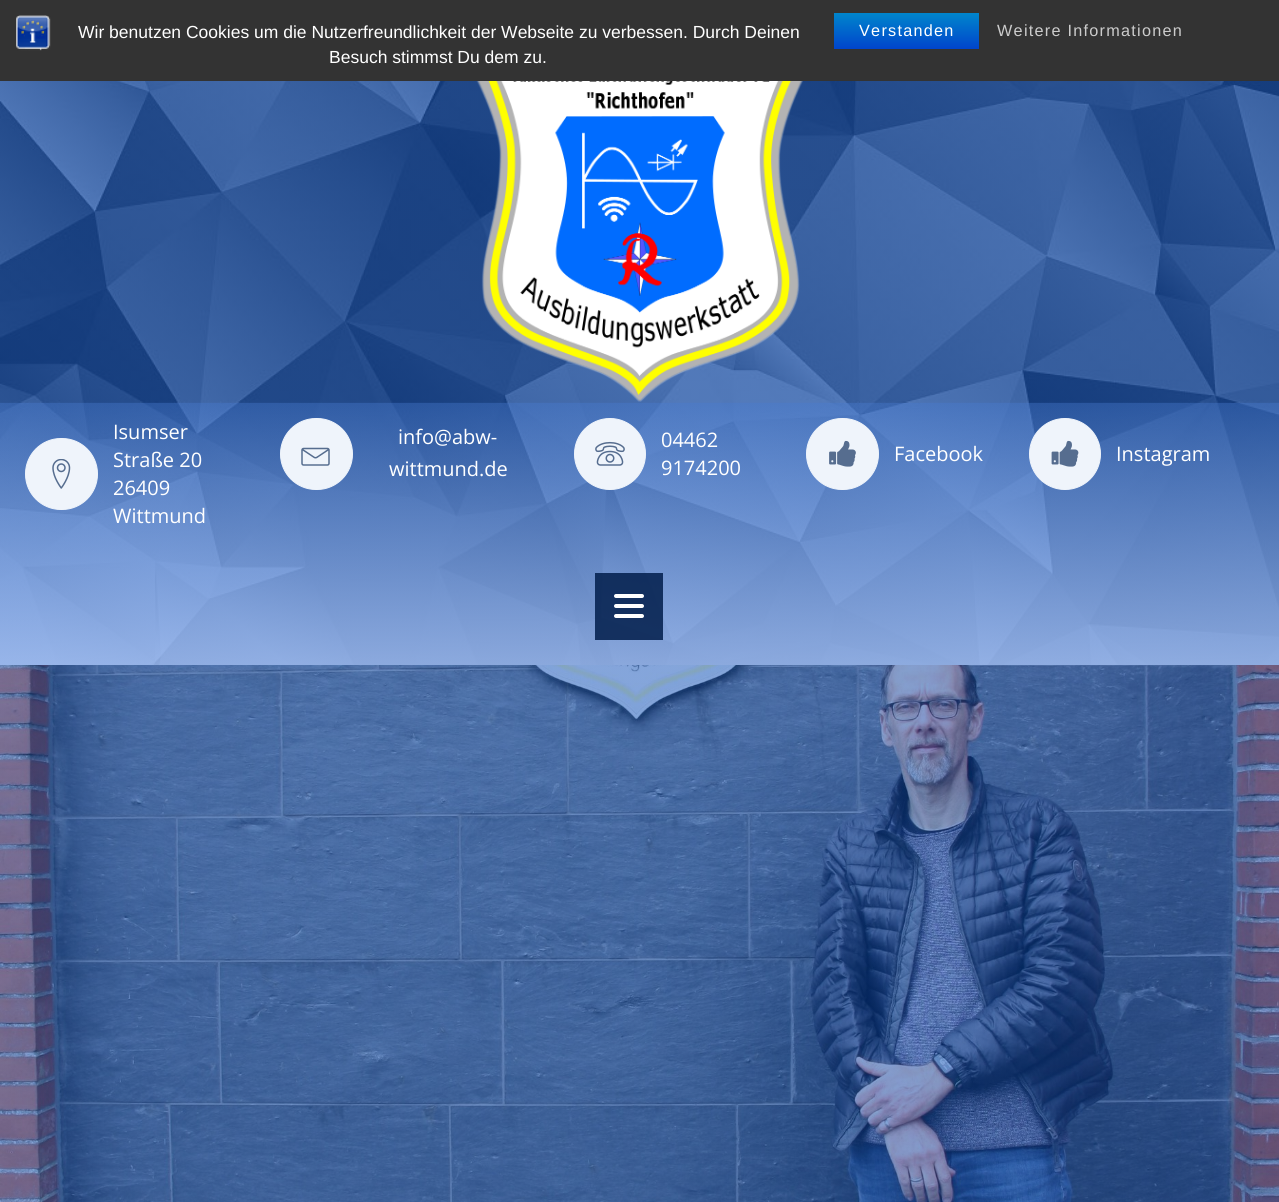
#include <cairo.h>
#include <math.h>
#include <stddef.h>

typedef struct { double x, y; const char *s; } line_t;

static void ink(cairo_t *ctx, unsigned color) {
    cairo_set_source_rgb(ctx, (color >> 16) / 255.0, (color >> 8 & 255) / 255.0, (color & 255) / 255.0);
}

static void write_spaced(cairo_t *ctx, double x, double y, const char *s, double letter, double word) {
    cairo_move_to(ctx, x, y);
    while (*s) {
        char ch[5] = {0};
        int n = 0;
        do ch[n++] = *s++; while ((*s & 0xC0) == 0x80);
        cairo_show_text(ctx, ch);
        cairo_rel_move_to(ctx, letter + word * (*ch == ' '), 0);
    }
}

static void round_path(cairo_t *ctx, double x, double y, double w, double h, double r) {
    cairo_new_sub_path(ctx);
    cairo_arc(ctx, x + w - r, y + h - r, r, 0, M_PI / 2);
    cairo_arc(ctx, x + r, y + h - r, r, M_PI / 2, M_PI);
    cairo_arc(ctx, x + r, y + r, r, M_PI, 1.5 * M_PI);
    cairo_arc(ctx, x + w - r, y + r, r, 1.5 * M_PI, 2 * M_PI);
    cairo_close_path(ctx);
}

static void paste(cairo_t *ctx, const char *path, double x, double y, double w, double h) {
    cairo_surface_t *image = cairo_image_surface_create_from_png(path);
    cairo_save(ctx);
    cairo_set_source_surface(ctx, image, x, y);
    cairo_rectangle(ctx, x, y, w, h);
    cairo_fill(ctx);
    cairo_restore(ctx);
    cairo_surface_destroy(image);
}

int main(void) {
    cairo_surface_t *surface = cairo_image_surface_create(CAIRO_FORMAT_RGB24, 1279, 1202);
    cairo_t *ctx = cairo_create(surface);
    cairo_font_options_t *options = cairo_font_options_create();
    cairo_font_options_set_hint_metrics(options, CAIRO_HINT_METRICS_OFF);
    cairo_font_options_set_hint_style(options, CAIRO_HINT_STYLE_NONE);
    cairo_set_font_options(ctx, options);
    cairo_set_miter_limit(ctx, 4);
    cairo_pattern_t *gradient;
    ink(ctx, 0xFFFFFF);
    cairo_paint(ctx);
    ink(ctx, 0x333333);
    cairo_rectangle(ctx, 0, 0, 1279, 81);
    cairo_fill(ctx);
    paste(ctx, "media/1.png", 16, 15, 35, 36);
    cairo_select_font_face(ctx, "Liberation Sans", CAIRO_FONT_SLANT_NORMAL, CAIRO_FONT_WEIGHT_NORMAL);
    cairo_set_font_size(ctx, 17.5);
    ink(ctx, 0xFFFFFF);
    cairo_move_to(ctx, 78, 38);
    cairo_show_text(ctx, "Wir benutzen Cookies um die Nutzerfreundlichkeit der Webseite zu verbessen. Durch Deinen");
    cairo_move_to(ctx, 329, 63);
    cairo_show_text(ctx, "Besuch stimmst Du dem zu.");
    gradient = cairo_pattern_create_linear(906, 12, 906, 49);
    cairo_pattern_add_color_stop_rgba(gradient, 0, 0, 0.533, 0.8, 1);
    cairo_pattern_add_color_stop_rgba(gradient, 1, 0, 0.267, 0.8, 1);
    cairo_set_source(ctx, gradient);
    cairo_pattern_destroy(gradient);
    cairo_rectangle(ctx, 834, 13, 145, 36);
    cairo_fill(ctx);
    cairo_set_font_size(ctx, 16.25);
    ink(ctx, 0xFFFFFF);
    write_spaced(ctx, 859, 36, "Verstanden", 1.25, 0);
    ink(ctx, 0xCCCCCC);
    write_spaced(ctx, 997, 36, "Weitere Informationen", 1.25, 0);
    paste(ctx, "media/2.png", 0, 402, 1279, 263);
    cairo_set_source_rgba(ctx, 0.02, 0.282, 0.71, 0.59);
    cairo_rectangle(ctx, 0, 402, 1279, 1);
    cairo_fill(ctx);
    paste(ctx, "media/3.png", 0, 81, 1279, 322);
    paste(ctx, "media/4.png", 476, 81, 327, 321);
    ink(ctx, 0xEFF4FB);
    round_path(ctx, 25.5, 438.5, 72, 71, 35.5);
    cairo_fill_preserve(ctx);
    cairo_set_line_width(ctx, 1);
    cairo_stroke(ctx);
    paste(ctx, "media/5.png", 52, 459, 19, 30);
    cairo_select_font_face(ctx, "Open Sans", CAIRO_FONT_SLANT_NORMAL, CAIRO_FONT_WEIGHT_NORMAL);
    cairo_set_font_size(ctx, 20);
    ink(ctx, 0xFFFFFF);
    {
        static const line_t items[] = {
            {113, 439, "Isumser"},
            {113, 467, "Straße 20"},
            {113, 495, "26409"},
            {113, 523, "Wittmund"},
        };
        for (size_t i = 0; i < sizeof items / sizeof *items; i++) {
            cairo_move_to(ctx, items[i].x, items[i].y);
            cairo_show_text(ctx, items[i].s);
        }
    }
    ink(ctx, 0xEFF4FB);
    round_path(ctx, 280.5, 418.5, 72, 71, 35.5);
    cairo_fill_preserve(ctx);
    cairo_stroke(ctx);
    paste(ctx, "media/6.png", 301, 447, 29, 19);
    ink(ctx, 0xFFFFFF);
    cairo_move_to(ctx, 398, 444);
    cairo_show_text(ctx, "info@abw-");
    cairo_move_to(ctx, 389, 476);
    cairo_show_text(ctx, "wittmund.de");
    ink(ctx, 0xEFF4FB);
    cairo_new_path(ctx);
    cairo_arc(ctx, 610, 454, 35.5, 0, 2 * M_PI);
    cairo_fill_preserve(ctx);
    cairo_stroke(ctx);
    paste(ctx, "media/7.png", 595, 441, 30, 25);
    ink(ctx, 0xFFFFFF);
    cairo_move_to(ctx, 661, 447);
    cairo_show_text(ctx, "04462");
    cairo_move_to(ctx, 661, 475);
    cairo_show_text(ctx, "9174200");
    ink(ctx, 0xEFF4FB);
    round_path(ctx, 806.5, 418.5, 72, 71, 35.5);
    cairo_fill_preserve(ctx);
    cairo_stroke(ctx);
    paste(ctx, "media/8.png", 829, 440, 27, 27);
    ink(ctx, 0xFFFFFF);
    cairo_move_to(ctx, 894, 461);
    cairo_show_text(ctx, "Facebook");
    ink(ctx, 0xEFF4FB);
    cairo_new_path(ctx);
    cairo_arc(ctx, 1065, 454, 35.5, 0, 2 * M_PI);
    cairo_fill_preserve(ctx);
    cairo_stroke(ctx);
    paste(ctx, "media/9.png", 1051, 440, 28, 27);
    ink(ctx, 0xFFFFFF);
    cairo_move_to(ctx, 1116, 461);
    cairo_show_text(ctx, "Instagram");
    cairo_set_source_rgba(ctx, 0.02, 0.282, 0.71, 0.71);
    cairo_rectangle(ctx, 595, 573, 68, 67);
    cairo_fill(ctx);
    cairo_set_source_rgba(ctx, 0, 0, 0, 0.5);
    cairo_rectangle(ctx, 595, 573, 68, 67);
    cairo_fill(ctx);
    ink(ctx, 0xFFFFFF);
    round_path(ctx, 614, 594, 30, 4, 2);
    cairo_fill(ctx);
    round_path(ctx, 614, 604, 30, 4, 2);
    cairo_fill(ctx);
    round_path(ctx, 614, 614, 30, 4, 2);
    cairo_fill(ctx);
    paste(ctx, "media/10.png", 0, 665, 1279, 537);
    cairo_surface_write_to_png(surface, "image.png");
    cairo_font_options_destroy(options);
    cairo_destroy(ctx);
    cairo_surface_destroy(surface);
    return 0;
}
